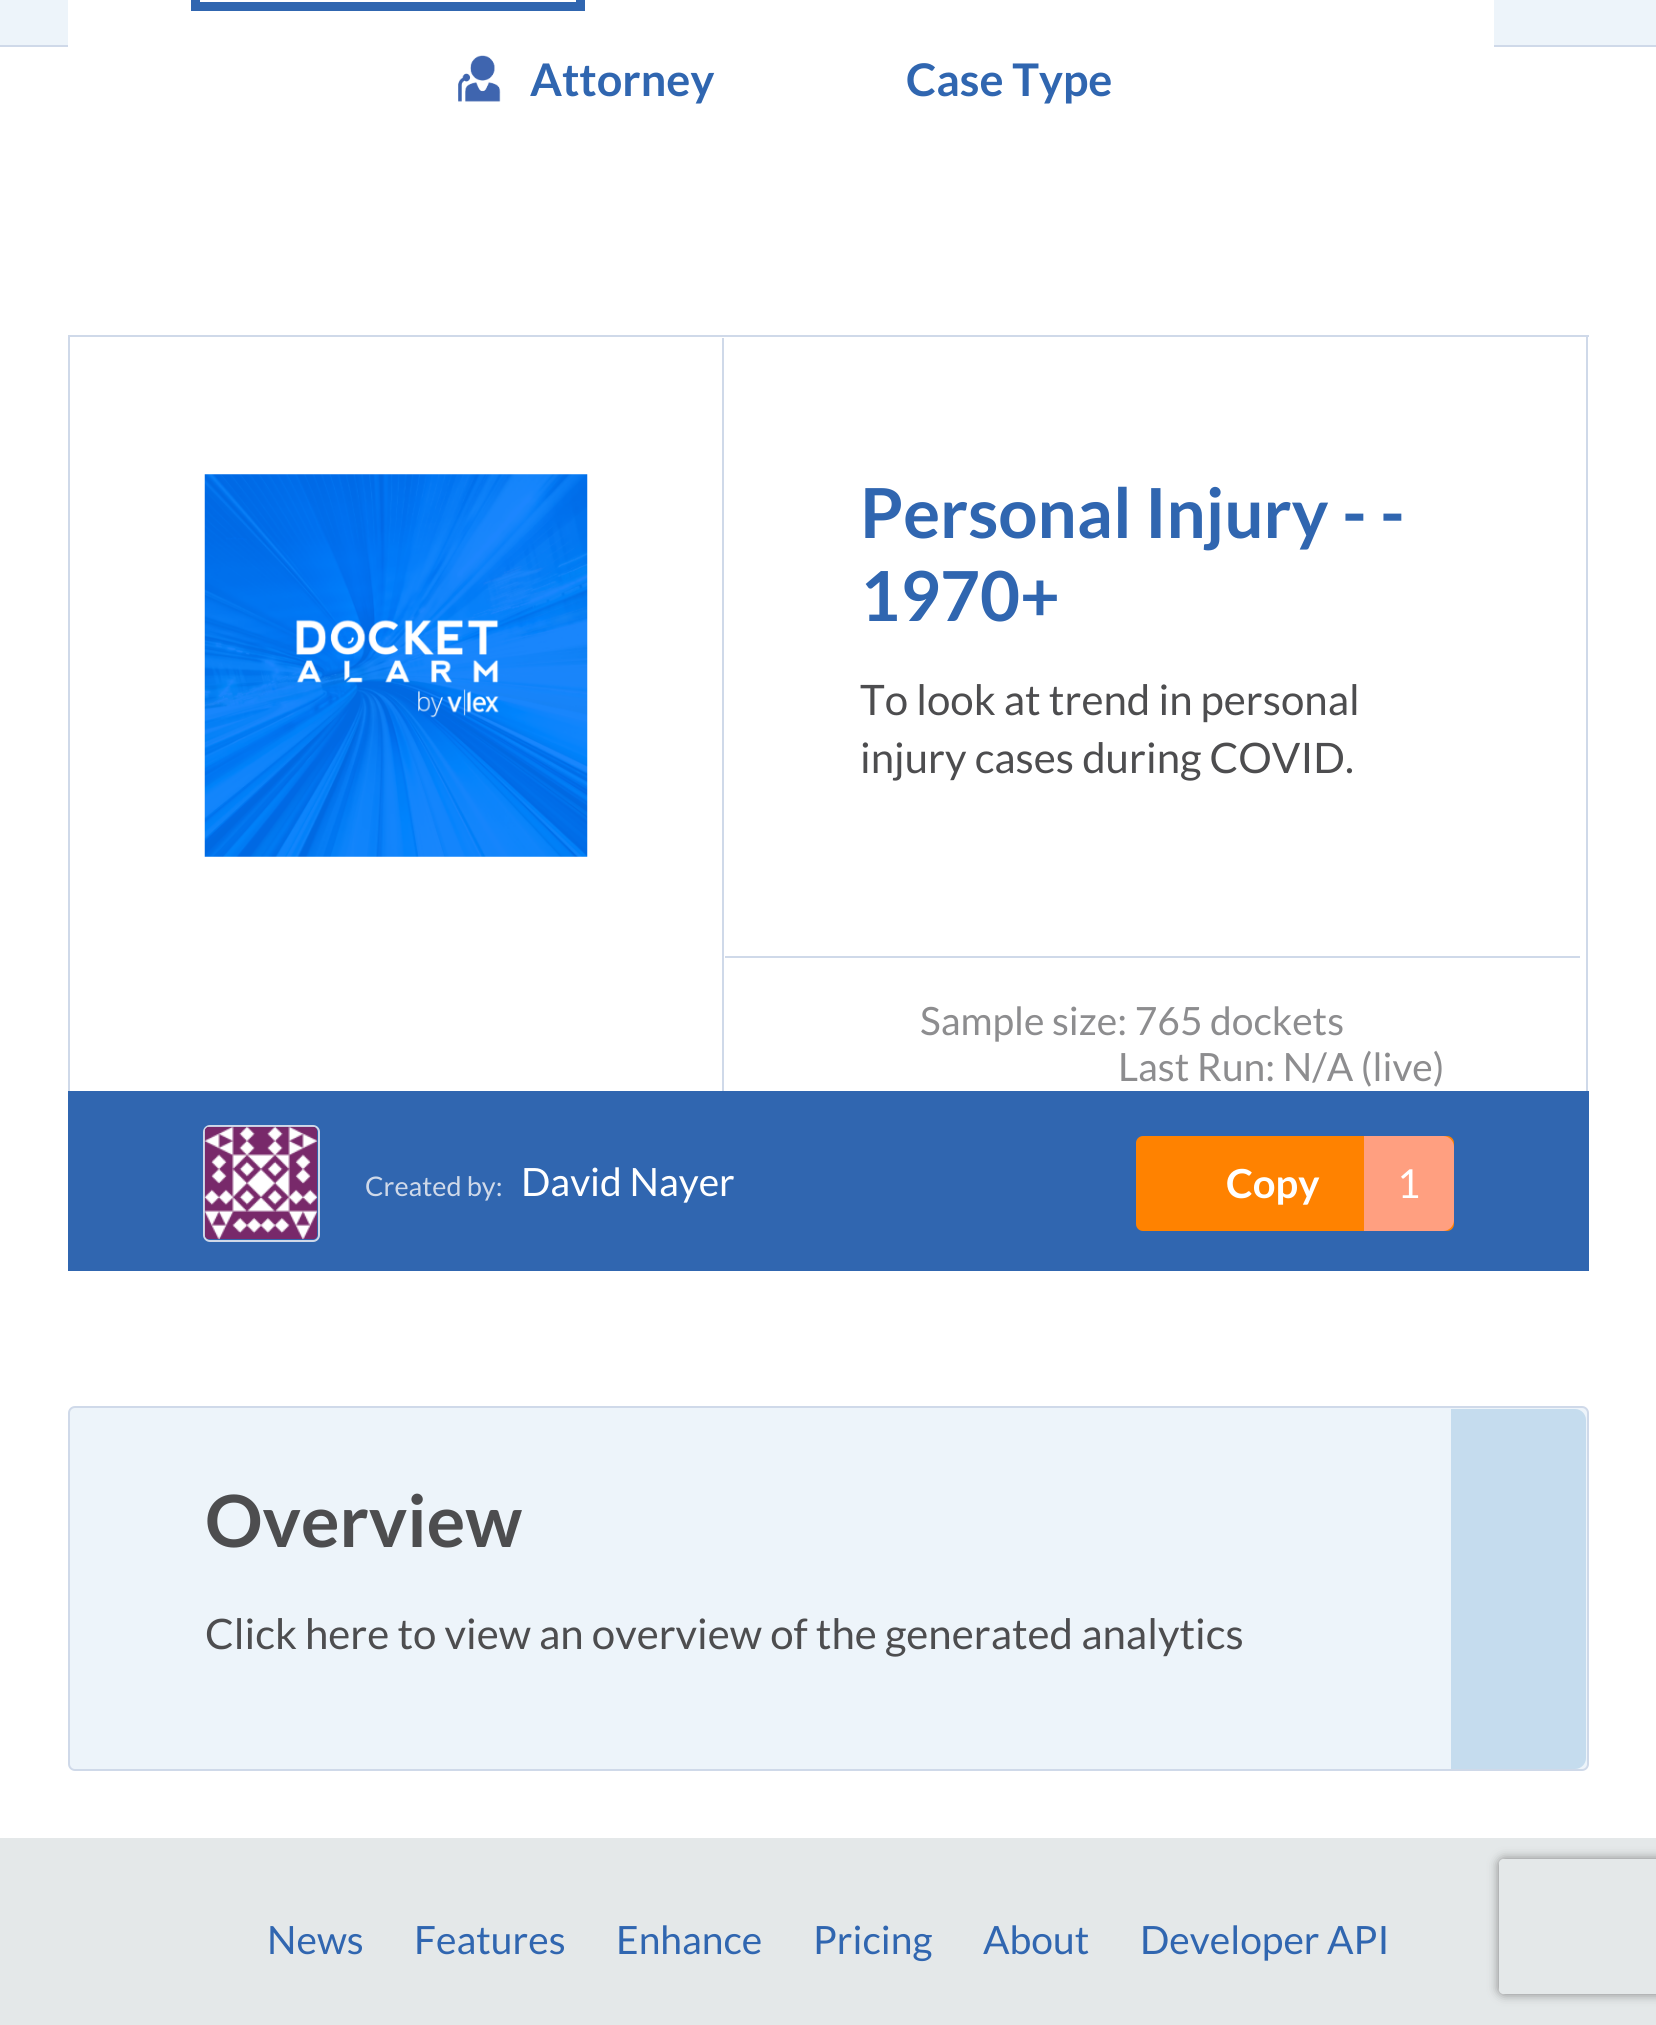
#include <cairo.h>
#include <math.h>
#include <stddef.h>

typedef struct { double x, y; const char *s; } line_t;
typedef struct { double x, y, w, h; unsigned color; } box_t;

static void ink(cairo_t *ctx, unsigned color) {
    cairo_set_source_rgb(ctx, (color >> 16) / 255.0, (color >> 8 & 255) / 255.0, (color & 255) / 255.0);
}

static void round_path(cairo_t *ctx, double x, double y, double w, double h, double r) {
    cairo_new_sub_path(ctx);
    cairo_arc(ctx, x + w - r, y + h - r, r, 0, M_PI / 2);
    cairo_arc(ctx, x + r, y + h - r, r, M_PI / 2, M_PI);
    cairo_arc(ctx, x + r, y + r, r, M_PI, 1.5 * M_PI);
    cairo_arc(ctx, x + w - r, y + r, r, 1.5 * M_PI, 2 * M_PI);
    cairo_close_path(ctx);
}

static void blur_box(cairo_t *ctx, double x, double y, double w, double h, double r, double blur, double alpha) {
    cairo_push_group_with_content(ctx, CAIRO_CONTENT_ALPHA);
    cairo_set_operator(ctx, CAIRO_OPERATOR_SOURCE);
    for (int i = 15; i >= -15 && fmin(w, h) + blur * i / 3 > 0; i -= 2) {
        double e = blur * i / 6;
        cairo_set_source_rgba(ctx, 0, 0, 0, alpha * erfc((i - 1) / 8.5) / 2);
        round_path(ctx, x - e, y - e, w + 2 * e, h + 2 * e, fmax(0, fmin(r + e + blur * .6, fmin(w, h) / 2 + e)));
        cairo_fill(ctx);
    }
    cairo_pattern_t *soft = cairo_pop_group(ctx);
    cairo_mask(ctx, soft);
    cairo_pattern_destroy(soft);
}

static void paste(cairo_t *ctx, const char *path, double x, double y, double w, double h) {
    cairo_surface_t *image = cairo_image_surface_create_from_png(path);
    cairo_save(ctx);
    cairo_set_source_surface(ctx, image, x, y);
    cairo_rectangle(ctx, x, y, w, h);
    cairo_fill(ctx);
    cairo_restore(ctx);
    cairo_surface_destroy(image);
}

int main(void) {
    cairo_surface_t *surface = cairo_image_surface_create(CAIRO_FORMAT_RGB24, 1656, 2025);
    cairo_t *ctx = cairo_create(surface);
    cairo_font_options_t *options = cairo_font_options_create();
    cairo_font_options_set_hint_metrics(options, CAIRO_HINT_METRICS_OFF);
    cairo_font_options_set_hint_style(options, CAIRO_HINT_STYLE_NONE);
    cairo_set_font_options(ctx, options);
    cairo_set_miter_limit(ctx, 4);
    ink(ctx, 0xFFFFFF);
    cairo_paint(ctx);
    {
        static const box_t items[] = {
            {0, 0, 1656, 45, 0xEDF4FA},
            {0, 45, 1656, 2, 0xCFD9E9},
            {68, 0, 1426, 47, 0xFFFFFF},
        };
        for (size_t i = 0; i < sizeof items / sizeof *items; i++) {
            ink(ctx, items[i].color);
            cairo_rectangle(ctx, items[i].x, items[i].y, items[i].w, items[i].h);
            cairo_fill(ctx);
        }
    }
    cairo_rectangle(ctx, 195.5, -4.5, 385, 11);
    ink(ctx, 0x3066B0);
    cairo_set_line_width(ctx, 9);
    cairo_stroke(ctx);
    paste(ctx, "media/1.png", 458, 55, 43, 47);
    cairo_select_font_face(ctx, "Lato", CAIRO_FONT_SLANT_NORMAL, CAIRO_FONT_WEIGHT_BOLD);
    cairo_set_font_size(ctx, 45);
    cairo_move_to(ctx, 530, 96);
    cairo_show_text(ctx, "Attorney");
    cairo_move_to(ctx, 906, 96);
    cairo_show_text(ctx, "Case Type");
    {
        static const box_t items[] = {
            {68, 335, 1521, 2, 0xCFD9E9},
            {1586, 335, 2, 756, 0xCFD9E9},
            {68, 335, 2, 756, 0xCFD9E9},
        };
        for (size_t i = 0; i < sizeof items / sizeof *items; i++) {
            ink(ctx, items[i].color);
            cairo_rectangle(ctx, items[i].x, items[i].y, items[i].w, items[i].h);
            cairo_fill(ctx);
        }
    }
    paste(ctx, "media/2.png", 204, 474, 384, 383);
    cairo_rectangle(ctx, 722, 338, 2, 753);
    cairo_fill(ctx);
    cairo_rectangle(ctx, 725, 956, 855, 2);
    cairo_fill(ctx);
    cairo_set_font_size(ctx, 69);
    ink(ctx, 0x3066B0);
    cairo_move_to(ctx, 860, 538);
    cairo_show_text(ctx, "Personal Injury - -");
    cairo_move_to(ctx, 860, 621);
    cairo_show_text(ctx, "1970+");
    cairo_select_font_face(ctx, "Lato", CAIRO_FONT_SLANT_NORMAL, CAIRO_FONT_WEIGHT_NORMAL);
    cairo_set_font_size(ctx, 42);
    ink(ctx, 0x4D4D4F);
    cairo_move_to(ctx, 860, 715);
    cairo_show_text(ctx, "To look at trend in personal");
    cairo_move_to(ctx, 860, 773);
    cairo_show_text(ctx, "injury cases during COVID.");
    cairo_set_font_size(ctx, 39);
    ink(ctx, 0x8D8D8F);
    cairo_move_to(ctx, 920, 1035);
    cairo_show_text(ctx, "Sample size: 765 dockets");
    cairo_move_to(ctx, 1118, 1081);
    cairo_show_text(ctx, "Last Run: N/A (live)");
    ink(ctx, 0x3066B0);
    cairo_rectangle(ctx, 68, 1091, 1521, 180);
    cairo_fill(ctx);
    round_path(ctx, 204, 1126, 115, 115, 6);
    ink(ctx, 0xCFD9E9);
    cairo_set_line_width(ctx, 2);
    cairo_stroke(ctx);
    paste(ctx, "media/3.png", 204, 1126, 114, 114);
    cairo_set_font_size(ctx, 27);
    cairo_move_to(ctx, 365, 1196);
    cairo_show_text(ctx, "Created by:");
    cairo_set_font_size(ctx, 39);
    ink(ctx, 0xFFFFFF);
    cairo_move_to(ctx, 521, 1196);
    cairo_show_text(ctx, "David Nayer");
    ink(ctx, 0xFF8200);
    round_path(ctx, 1136, 1136, 318, 95, 7);
    cairo_fill(ctx);
    cairo_select_font_face(ctx, "Lato", CAIRO_FONT_SLANT_NORMAL, CAIRO_FONT_WEIGHT_BOLD);
    cairo_set_font_size(ctx, 40);
    ink(ctx, 0xFFFFFF);
    cairo_move_to(ctx, 1226, 1198);
    cairo_show_text(ctx, "Copy");
    ink(ctx, 0xFF9F80);
    cairo_new_path(ctx);
    cairo_move_to(ctx, 1364, 1136);
    cairo_line_to(ctx, 1443, 1136);
    cairo_curve_to(ctx, 1449, 1136, 1454, 1141, 1454, 1147);
    cairo_line_to(ctx, 1454, 1220);
    cairo_curve_to(ctx, 1454, 1226, 1449, 1231, 1443, 1231);
    cairo_line_to(ctx, 1364, 1231);
    cairo_close_path(ctx);
    cairo_fill(ctx);
    cairo_select_font_face(ctx, "Lato", CAIRO_FONT_SLANT_NORMAL, CAIRO_FONT_WEIGHT_NORMAL);
    ink(ctx, 0xFFFFFF);
    cairo_move_to(ctx, 1397, 1198);
    cairo_show_text(ctx, "1");
    ink(ctx, 0xEDF4FA);
    round_path(ctx, 69, 1407, 1519, 363, 6);
    cairo_fill_preserve(ctx);
    ink(ctx, 0xCFD9E9);
    cairo_stroke(ctx);
    cairo_select_font_face(ctx, "Lato", CAIRO_FONT_SLANT_NORMAL, CAIRO_FONT_WEIGHT_BOLD);
    cairo_set_font_size(ctx, 72);
    ink(ctx, 0x4D4D4F);
    cairo_move_to(ctx, 205, 1547);
    cairo_show_text(ctx, "Overview");
    ink(ctx, 0xC5DCEE);
    cairo_new_path(ctx);
    cairo_move_to(ctx, 1451, 1409);
    cairo_line_to(ctx, 1575, 1409);
    cairo_curve_to(ctx, 1581, 1409, 1586, 1414, 1586, 1420);
    cairo_line_to(ctx, 1586, 1758);
    cairo_curve_to(ctx, 1586, 1764, 1581, 1769, 1575, 1769);
    cairo_line_to(ctx, 1451, 1769);
    cairo_close_path(ctx);
    cairo_fill(ctx);
    cairo_select_font_face(ctx, "Lato", CAIRO_FONT_SLANT_NORMAL, CAIRO_FONT_WEIGHT_NORMAL);
    cairo_set_font_size(ctx, 42);
    ink(ctx, 0x4D4D4F);
    cairo_move_to(ctx, 205, 1649);
    cairo_show_text(ctx, "Click here to view an overview of the generated analytics");
    ink(ctx, 0xE4E8E9);
    cairo_rectangle(ctx, 0, 1838, 1656, 187);
    cairo_fill(ctx);
    cairo_set_font_size(ctx, 39);
    ink(ctx, 0x3066B0);
    {
        static const line_t items[] = {
            {267, 1954, "News"},
            {414, 1954, "Features"},
            {616, 1954, "Enhance"},
            {813, 1954, "Pricing"},
            {983, 1954, "About"},
            {1140, 1954, "Developer API"},
        };
        for (size_t i = 0; i < sizeof items / sizeof *items; i++) {
            cairo_move_to(ctx, items[i].x, items[i].y);
            cairo_show_text(ctx, items[i].s);
        }
    }
    cairo_save(ctx);
    cairo_set_fill_rule(ctx, CAIRO_FILL_RULE_EVEN_ODD);
    cairo_new_path(ctx);
    cairo_move_to(ctx, 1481, 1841);
    cairo_line_to(ctx, 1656, 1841);
    cairo_line_to(ctx, 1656, 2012);
    cairo_line_to(ctx, 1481, 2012);
    cairo_close_path(ctx);
    cairo_move_to(ctx, 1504, 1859);
    cairo_line_to(ctx, 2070, 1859);
    cairo_curve_to(ctx, 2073, 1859, 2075, 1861, 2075, 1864);
    cairo_line_to(ctx, 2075, 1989);
    cairo_curve_to(ctx, 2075, 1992, 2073, 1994, 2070, 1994);
    cairo_line_to(ctx, 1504, 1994);
    cairo_curve_to(ctx, 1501, 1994, 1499, 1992, 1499, 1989);
    cairo_line_to(ctx, 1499, 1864);
    cairo_curve_to(ctx, 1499, 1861, 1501, 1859, 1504, 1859);
    cairo_close_path(ctx);
    cairo_clip(ctx);
    ink(ctx, 0x808080);
    blur_box(ctx, 1499, 1859, 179, 135, 5, 5.5, 1);
    cairo_restore(ctx);
    cairo_surface_write_to_png(surface, "image.png");
    cairo_font_options_destroy(options);
    cairo_destroy(ctx);
    cairo_surface_destroy(surface);
    return 0;
}
